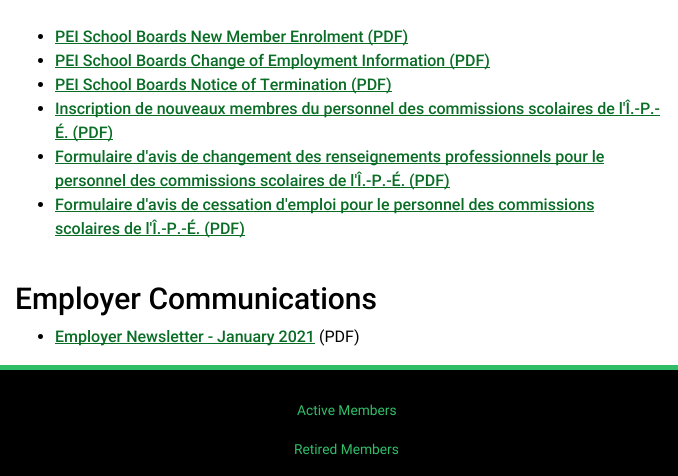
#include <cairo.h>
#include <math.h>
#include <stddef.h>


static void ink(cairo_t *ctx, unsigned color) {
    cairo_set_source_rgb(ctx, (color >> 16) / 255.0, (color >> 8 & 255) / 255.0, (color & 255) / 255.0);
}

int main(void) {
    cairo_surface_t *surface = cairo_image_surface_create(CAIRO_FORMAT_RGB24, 678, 476);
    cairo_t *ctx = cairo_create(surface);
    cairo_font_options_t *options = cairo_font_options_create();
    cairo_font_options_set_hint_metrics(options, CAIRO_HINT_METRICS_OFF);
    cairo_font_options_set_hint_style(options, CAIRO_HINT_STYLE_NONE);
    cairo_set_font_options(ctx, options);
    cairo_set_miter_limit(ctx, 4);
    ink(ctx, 0xFFFFFF);
    cairo_paint(ctx);
    ink(ctx, 0x000000);
    cairo_arc(ctx, 40.5, 36.5, 2.5, 0, 2 * M_PI);
    cairo_fill(ctx);
    ink(ctx, 0x096D26);
    cairo_rectangle(ctx, 55, 43, 353, 1);
    cairo_fill(ctx);
    cairo_select_font_face(ctx, "Roboto Medium", CAIRO_FONT_SLANT_NORMAL, CAIRO_FONT_WEIGHT_NORMAL);
    cairo_set_font_size(ctx, 16);
    cairo_move_to(ctx, 55, 42);
    cairo_show_text(ctx, "PEI School Boards New Member Enrolment (PDF)");
    ink(ctx, 0x000000);
    cairo_new_path(ctx);
    cairo_arc(ctx, 40.5, 60.5, 2.5, 0, 2 * M_PI);
    cairo_fill(ctx);
    ink(ctx, 0x096D26);
    cairo_rectangle(ctx, 55, 67, 435, 1);
    cairo_fill(ctx);
    cairo_move_to(ctx, 55, 66);
    cairo_show_text(ctx, "PEI School Boards Change of Employment Information (PDF)");
    ink(ctx, 0x000000);
    cairo_new_path(ctx);
    cairo_arc(ctx, 40.5, 84.5, 2.5, 0, 2 * M_PI);
    cairo_fill(ctx);
    ink(ctx, 0x096D26);
    cairo_rectangle(ctx, 55, 91, 337, 1);
    cairo_fill(ctx);
    cairo_move_to(ctx, 55, 90);
    cairo_show_text(ctx, "PEI School Boards Notice of Termination (PDF)");
    ink(ctx, 0x000000);
    cairo_new_path(ctx);
    cairo_arc(ctx, 40.5, 108.5, 2.5, 0, 2 * M_PI);
    cairo_fill(ctx);
    ink(ctx, 0x096D26);
    cairo_rectangle(ctx, 55, 115, 605, 1);
    cairo_fill(ctx);
    cairo_move_to(ctx, 55, 114);
    cairo_show_text(ctx, "Inscription de nouveaux membres du personnel des commissions scolaires de l'Î.-P.-");
    cairo_rectangle(ctx, 55, 139, 58, 1);
    cairo_fill(ctx);
    cairo_move_to(ctx, 55, 138);
    cairo_show_text(ctx, "É. (PDF)");
    ink(ctx, 0x000000);
    cairo_new_path(ctx);
    cairo_arc(ctx, 40.5, 156.5, 2.5, 0, 2 * M_PI);
    cairo_fill(ctx);
    ink(ctx, 0x096D26);
    cairo_rectangle(ctx, 55, 163, 549, 1);
    cairo_fill(ctx);
    cairo_move_to(ctx, 55, 162);
    cairo_show_text(ctx, "Formulaire d'avis de changement des renseignements professionnels pour le");
    cairo_rectangle(ctx, 55, 187, 395, 1);
    cairo_fill(ctx);
    cairo_move_to(ctx, 55, 186);
    cairo_show_text(ctx, "personnel des commissions scolaires de l'Î.-P.-É. (PDF)");
    ink(ctx, 0x000000);
    cairo_new_path(ctx);
    cairo_arc(ctx, 40.5, 204.5, 2.5, 0, 2 * M_PI);
    cairo_fill(ctx);
    ink(ctx, 0x096D26);
    cairo_rectangle(ctx, 55, 211, 539, 1);
    cairo_fill(ctx);
    cairo_move_to(ctx, 55, 210);
    cairo_show_text(ctx, "Formulaire d'avis de cessation d'emploi pour le personnel des commissions");
    cairo_rectangle(ctx, 55, 235, 190, 1);
    cairo_fill(ctx);
    cairo_move_to(ctx, 55, 234);
    cairo_show_text(ctx, "scolaires de l'Î.-P.-É. (PDF)");
    cairo_set_font_size(ctx, 30);
    ink(ctx, 0x000000);
    cairo_move_to(ctx, 15, 309);
    cairo_show_text(ctx, "Employer Communications");
    cairo_new_path(ctx);
    cairo_arc(ctx, 40.5, 336.5, 2.5, 0, 2 * M_PI);
    cairo_fill(ctx);
    ink(ctx, 0x096D26);
    cairo_rectangle(ctx, 55, 343, 260, 1);
    cairo_fill(ctx);
    cairo_set_font_size(ctx, 16);
    cairo_move_to(ctx, 55, 342);
    cairo_show_text(ctx, "Employer Newsletter - January 2021");
    cairo_select_font_face(ctx, "Roboto", CAIRO_FONT_SLANT_NORMAL, CAIRO_FONT_WEIGHT_NORMAL);
    ink(ctx, 0x000000);
    cairo_move_to(ctx, 319, 342);
    cairo_show_text(ctx, "(PDF)");
    cairo_rectangle(ctx, 0, 370, 678, 106);
    cairo_fill(ctx);
    ink(ctx, 0x2FBD68);
    cairo_rectangle(ctx, 0, 365, 678, 5);
    cairo_fill(ctx);
    cairo_set_font_size(ctx, 13.75);
    cairo_move_to(ctx, 297, 415);
    cairo_show_text(ctx, "Active Members");
    cairo_move_to(ctx, 294, 454);
    cairo_show_text(ctx, "Retired Members");
    cairo_surface_write_to_png(surface, "image.png");
    cairo_font_options_destroy(options);
    cairo_destroy(ctx);
    cairo_surface_destroy(surface);
    return 0;
}
